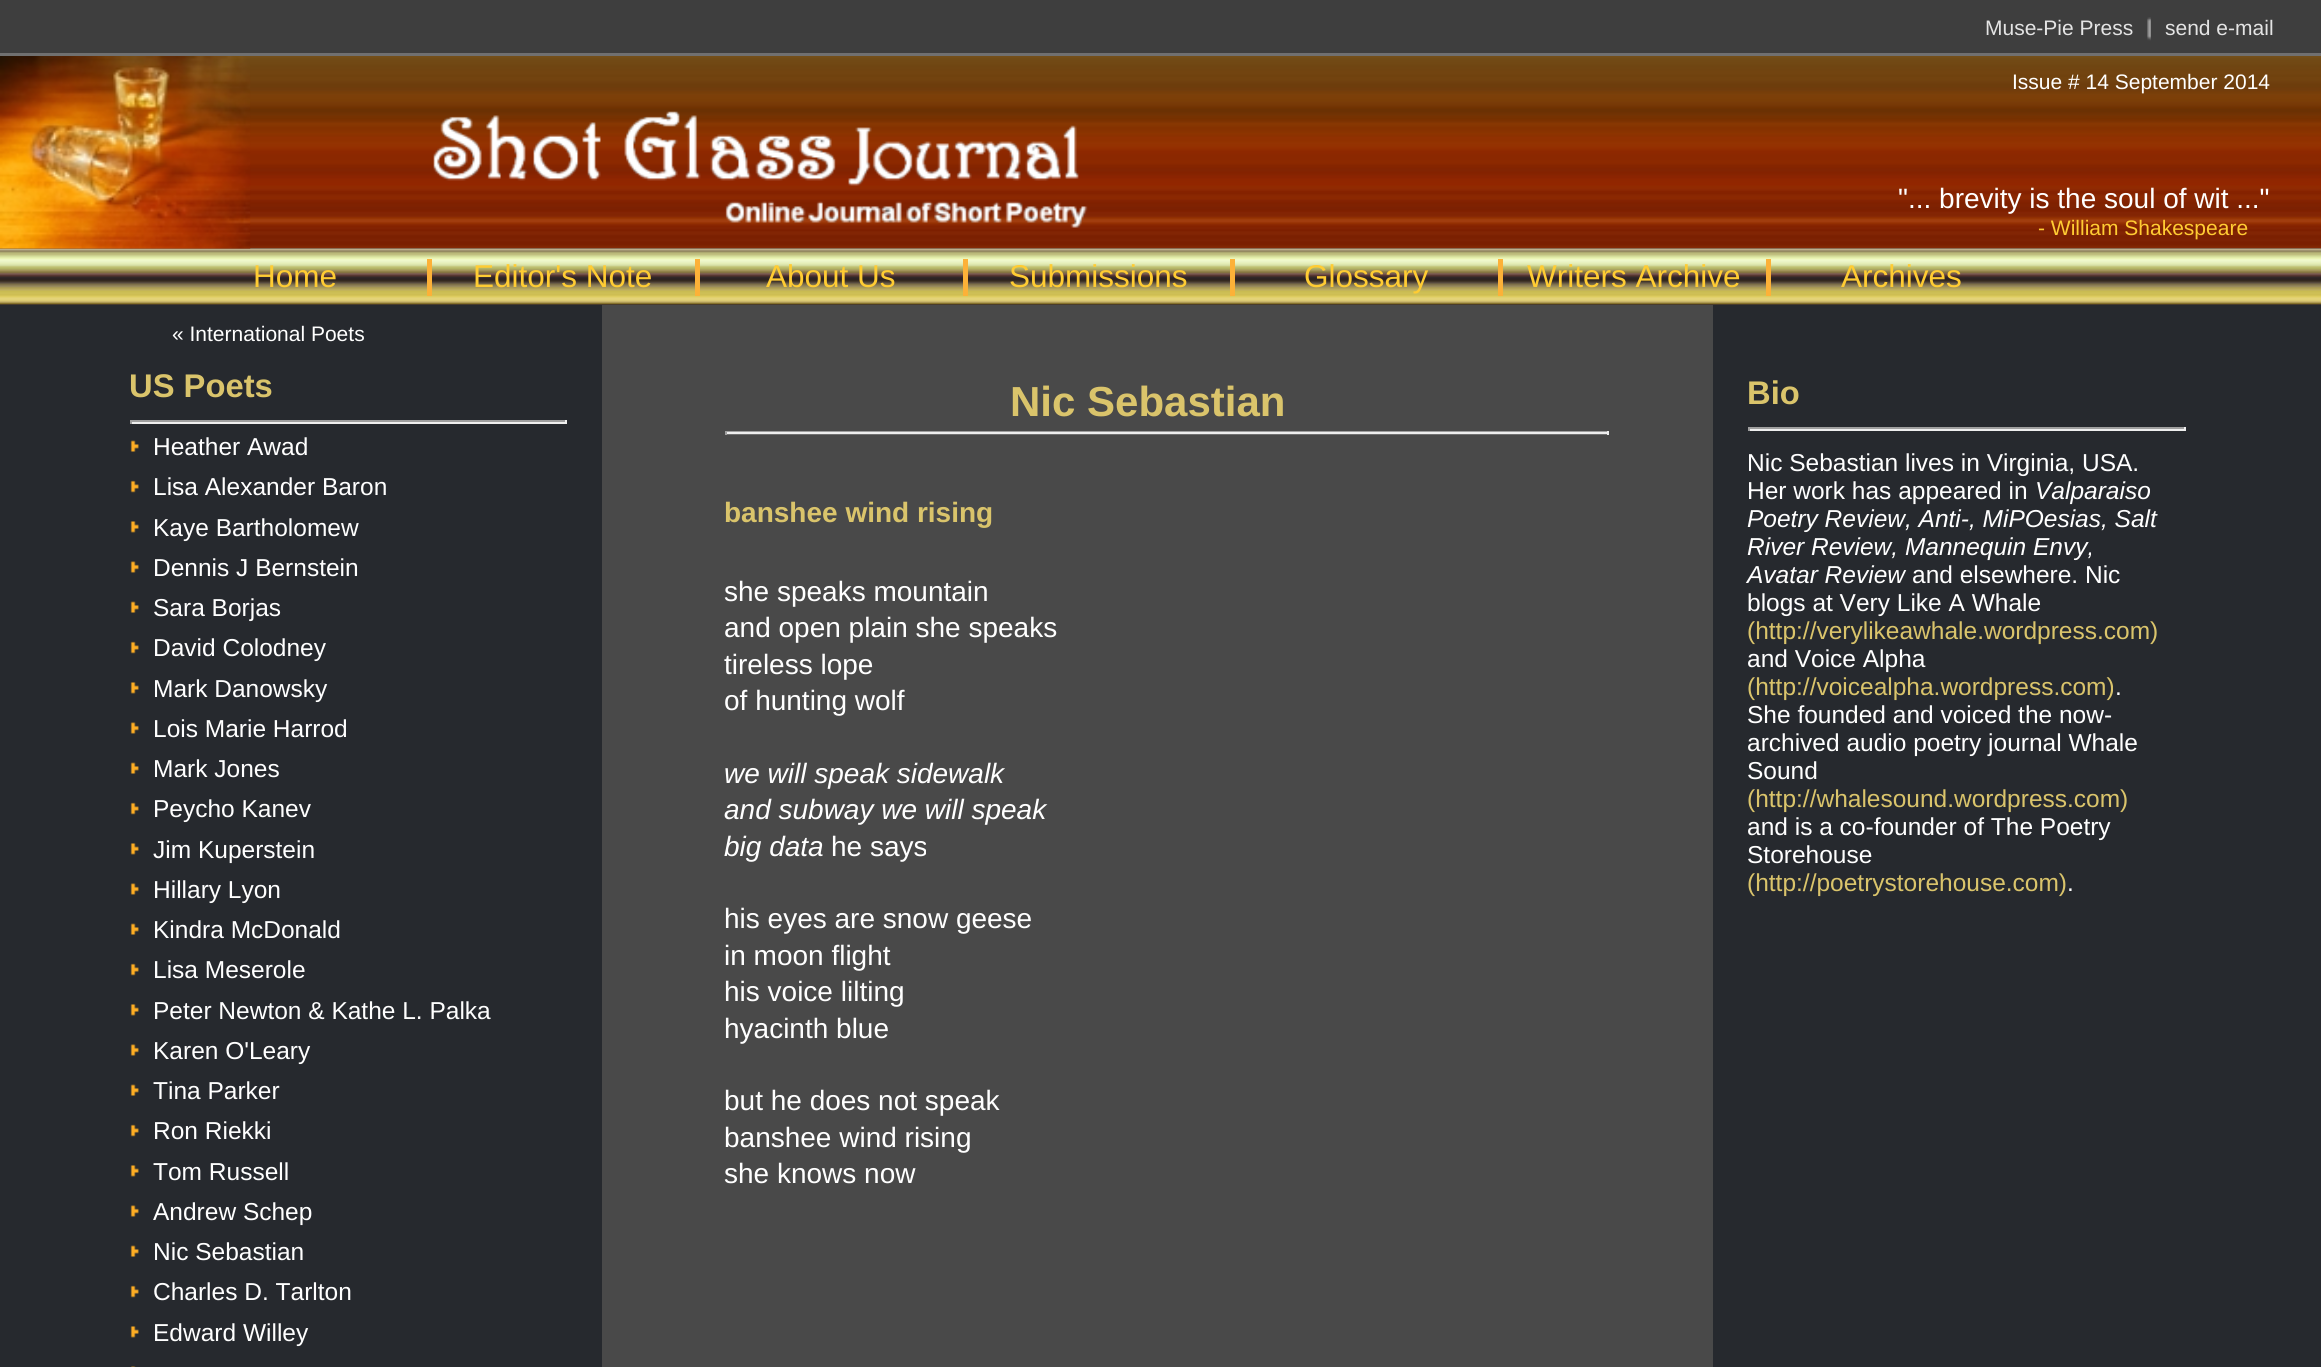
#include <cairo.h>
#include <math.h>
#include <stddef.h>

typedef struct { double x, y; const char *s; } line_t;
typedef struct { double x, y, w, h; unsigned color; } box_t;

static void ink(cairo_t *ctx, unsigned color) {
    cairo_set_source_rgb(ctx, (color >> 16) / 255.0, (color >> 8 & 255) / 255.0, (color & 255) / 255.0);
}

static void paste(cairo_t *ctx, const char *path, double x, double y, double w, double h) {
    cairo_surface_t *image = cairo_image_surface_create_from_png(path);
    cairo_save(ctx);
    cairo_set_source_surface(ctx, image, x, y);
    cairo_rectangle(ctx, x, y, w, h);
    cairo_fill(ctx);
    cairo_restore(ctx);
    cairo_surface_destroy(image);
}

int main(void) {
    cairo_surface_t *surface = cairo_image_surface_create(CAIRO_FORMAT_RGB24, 2321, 1367);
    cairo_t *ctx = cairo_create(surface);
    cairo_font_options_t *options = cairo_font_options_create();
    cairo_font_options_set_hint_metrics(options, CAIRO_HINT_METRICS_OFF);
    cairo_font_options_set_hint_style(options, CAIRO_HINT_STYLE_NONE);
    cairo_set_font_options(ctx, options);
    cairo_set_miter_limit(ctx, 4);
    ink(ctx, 0x26292E);
    cairo_paint(ctx);
    ink(ctx, 0x3E3E3E);
    cairo_rectangle(ctx, 0, 0, 2321, 53);
    cairo_fill(ctx);
    ink(ctx, 0x707070);
    cairo_rectangle(ctx, 0, 53, 2321, 3);
    cairo_fill(ctx);
    cairo_select_font_face(ctx, "Liberation Sans", CAIRO_FONT_SLANT_NORMAL, CAIRO_FONT_WEIGHT_NORMAL);
    cairo_set_font_size(ctx, 21);
    ink(ctx, 0xE4E4E4);
    cairo_move_to(ctx, 1985, 35);
    cairo_show_text(ctx, "Muse-Pie Press");
    paste(ctx, "media/1.png", 2147, 17, 4, 24);
    cairo_move_to(ctx, 2165, 35);
    cairo_show_text(ctx, "send e-mail");
    paste(ctx, "media/2.png", 0, 56, 2321, 193);
    paste(ctx, "media/5.png", 0, 248, 2321, 57);
    paste(ctx, "media/3.png", 0, 56, 251, 193);
    ink(ctx, 0xFFFFFF);
    cairo_move_to(ctx, 2012, 89);
    cairo_show_text(ctx, "Issue # 14 September 2014");
    paste(ctx, "media/4.png", 433, 111, 655, 117);
    cairo_set_font_size(ctx, 28);
    cairo_move_to(ctx, 1898, 208);
    cairo_show_text(ctx, "\"... brevity is the soul of wit ...\"");
    cairo_set_font_size(ctx, 21);
    ink(ctx, 0xFFCC33);
    cairo_move_to(ctx, 2038, 235);
    cairo_show_text(ctx, "- William Shakespeare");
    ink(ctx, 0xFCB138);
    cairo_rectangle(ctx, 427, 259, 5, 37);
    cairo_fill(ctx);
    cairo_set_font_size(ctx, 31.5);
    ink(ctx, 0xFFCC33);
    cairo_move_to(ctx, 253, 287);
    cairo_show_text(ctx, "Home");
    ink(ctx, 0xFCB138);
    cairo_rectangle(ctx, 695, 259, 5, 37);
    cairo_fill(ctx);
    ink(ctx, 0xFFCC33);
    cairo_move_to(ctx, 473, 287);
    cairo_show_text(ctx, "Editor's Note");
    ink(ctx, 0xFCB138);
    cairo_rectangle(ctx, 963, 259, 5, 37);
    cairo_fill(ctx);
    ink(ctx, 0xFFCC33);
    cairo_move_to(ctx, 766, 287);
    cairo_show_text(ctx, "About Us");
    ink(ctx, 0xFCB138);
    cairo_rectangle(ctx, 1230, 259, 5, 37);
    cairo_fill(ctx);
    ink(ctx, 0xFFCC33);
    cairo_move_to(ctx, 1009, 287);
    cairo_show_text(ctx, "Submissions");
    ink(ctx, 0xFCB138);
    cairo_rectangle(ctx, 1498, 259, 5, 37);
    cairo_fill(ctx);
    ink(ctx, 0xFFCC33);
    cairo_move_to(ctx, 1304, 287);
    cairo_show_text(ctx, "Glossary");
    ink(ctx, 0xFCB138);
    cairo_rectangle(ctx, 1766, 259, 5, 37);
    cairo_fill(ctx);
    ink(ctx, 0xFFCC33);
    cairo_move_to(ctx, 1527, 287);
    cairo_show_text(ctx, "Writers Archive");
    cairo_move_to(ctx, 1841, 287);
    cairo_show_text(ctx, "Archives");
    cairo_set_font_size(ctx, 21);
    ink(ctx, 0xFFFFFF);
    cairo_move_to(ctx, 172, 341);
    cairo_show_text(ctx, "« International Poets");
    cairo_select_font_face(ctx, "Liberation Sans", CAIRO_FONT_SLANT_NORMAL, CAIRO_FONT_WEIGHT_BOLD);
    cairo_set_font_size(ctx, 32.75);
    ink(ctx, 0xDAC46B);
    cairo_move_to(ctx, 129, 397);
    cairo_show_text(ctx, "US Poets");
    {
        static const box_t items[] = {
            {130, 420, 437, 2, 0x9F9F9F},
            {565, 420, 2, 4, 0xEEEEEE},
            {130, 422, 437, 2, 0xEEEEEE},
            {130, 420, 2, 4, 0x9F9F9F},
        };
        for (size_t i = 0; i < sizeof items / sizeof *items; i++) {
            ink(ctx, items[i].color);
            cairo_rectangle(ctx, items[i].x, items[i].y, items[i].w, items[i].h);
            cairo_fill(ctx);
        }
    }
    paste(ctx, "media/6.png", 130, 440, 9, 12);
    cairo_select_font_face(ctx, "Liberation Sans", CAIRO_FONT_SLANT_NORMAL, CAIRO_FONT_WEIGHT_NORMAL);
    cairo_set_font_size(ctx, 24.5);
    ink(ctx, 0xFFFFFF);
    cairo_move_to(ctx, 153, 455);
    cairo_show_text(ctx, "Heather Awad");
    paste(ctx, "media/7.png", 130, 480, 9, 13);
    cairo_move_to(ctx, 153, 495);
    cairo_show_text(ctx, "Lisa Alexander Baron");
    paste(ctx, "media/8.png", 130, 521, 9, 12);
    cairo_move_to(ctx, 153, 536);
    cairo_show_text(ctx, "Kaye Bartholomew");
    paste(ctx, "media/9.png", 130, 561, 9, 12);
    cairo_move_to(ctx, 153, 576);
    cairo_show_text(ctx, "Dennis J Bernstein");
    paste(ctx, "media/6.png", 130, 601, 9, 12);
    cairo_move_to(ctx, 153, 616);
    cairo_show_text(ctx, "Sara Borjas");
    paste(ctx, "media/7.png", 130, 641, 9, 13);
    cairo_move_to(ctx, 153, 656);
    cairo_show_text(ctx, "David Colodney");
    paste(ctx, "media/8.png", 130, 682, 9, 12);
    cairo_move_to(ctx, 153, 697);
    cairo_show_text(ctx, "Mark Danowsky");
    paste(ctx, "media/9.png", 130, 722, 9, 12);
    cairo_move_to(ctx, 153, 737);
    cairo_show_text(ctx, "Lois Marie Harrod");
    paste(ctx, "media/6.png", 130, 762, 9, 12);
    cairo_move_to(ctx, 153, 777);
    cairo_show_text(ctx, "Mark Jones");
    paste(ctx, "media/7.png", 130, 802, 9, 13);
    cairo_move_to(ctx, 153, 817);
    cairo_show_text(ctx, "Peycho Kanev");
    paste(ctx, "media/8.png", 130, 843, 9, 12);
    cairo_move_to(ctx, 153, 858);
    cairo_show_text(ctx, "Jim Kuperstein");
    paste(ctx, "media/9.png", 130, 883, 9, 12);
    cairo_move_to(ctx, 153, 898);
    cairo_show_text(ctx, "Hillary Lyon");
    paste(ctx, "media/6.png", 130, 923, 9, 12);
    cairo_move_to(ctx, 153, 938);
    cairo_show_text(ctx, "Kindra McDonald");
    paste(ctx, "media/7.png", 130, 963, 9, 13);
    cairo_move_to(ctx, 153, 978);
    cairo_show_text(ctx, "Lisa Meserole");
    paste(ctx, "media/8.png", 130, 1004, 9, 12);
    cairo_move_to(ctx, 153, 1019);
    cairo_show_text(ctx, "Peter Newton & Kathe L. Palka");
    paste(ctx, "media/9.png", 130, 1044, 9, 12);
    cairo_move_to(ctx, 153, 1059);
    cairo_show_text(ctx, "Karen O'Leary");
    paste(ctx, "media/6.png", 130, 1084, 9, 12);
    cairo_move_to(ctx, 153, 1099);
    cairo_show_text(ctx, "Tina Parker");
    paste(ctx, "media/7.png", 130, 1124, 9, 13);
    cairo_move_to(ctx, 153, 1139);
    cairo_show_text(ctx, "Ron Riekki");
    paste(ctx, "media/8.png", 130, 1165, 9, 12);
    cairo_move_to(ctx, 153, 1180);
    cairo_show_text(ctx, "Tom Russell");
    paste(ctx, "media/9.png", 130, 1205, 9, 12);
    cairo_move_to(ctx, 153, 1220);
    cairo_show_text(ctx, "Andrew Schep");
    paste(ctx, "media/6.png", 130, 1245, 9, 12);
    cairo_move_to(ctx, 153, 1260);
    cairo_show_text(ctx, "Nic Sebastian");
    paste(ctx, "media/7.png", 130, 1285, 9, 13);
    cairo_move_to(ctx, 153, 1300);
    cairo_show_text(ctx, "Charles D. Tarlton");
    paste(ctx, "media/8.png", 130, 1326, 9, 12);
    cairo_move_to(ctx, 153, 1341);
    cairo_show_text(ctx, "Edward Willey");
    paste(ctx, "media/10.png", 131, 1366, 5, 1);
    ink(ctx, 0x494949);
    cairo_rectangle(ctx, 602, 305, 1111, 1062);
    cairo_fill(ctx);
    cairo_select_font_face(ctx, "Liberation Sans", CAIRO_FONT_SLANT_NORMAL, CAIRO_FONT_WEIGHT_BOLD);
    cairo_set_font_size(ctx, 42);
    ink(ctx, 0xDAC46B);
    cairo_move_to(ctx, 1010, 416);
    cairo_show_text(ctx, "Nic Sebastian");
    {
        static const box_t items[] = {
            {725, 434, 883, 1, 0x707070},
            {725, 431, 883, 1, 0x9F9F9F},
            {1607, 431, 2, 4, 0xEEEEEE},
            {725, 432, 883, 2, 0xEEEEEE},
            {725, 431, 2, 4, 0x9F9F9F},
        };
        for (size_t i = 0; i < sizeof items / sizeof *items; i++) {
            ink(ctx, items[i].color);
            cairo_rectangle(ctx, items[i].x, items[i].y, items[i].w, items[i].h);
            cairo_fill(ctx);
        }
    }
    cairo_set_font_size(ctx, 28);
    ink(ctx, 0xDAC46B);
    cairo_move_to(ctx, 724, 522);
    cairo_show_text(ctx, "banshee wind rising");
    cairo_select_font_face(ctx, "Liberation Sans", CAIRO_FONT_SLANT_NORMAL, CAIRO_FONT_WEIGHT_NORMAL);
    ink(ctx, 0xFFFFFF);
    {
        static const line_t items[] = {
            {724, 601, "she speaks mountain"},
            {724, 637, "and open plain she speaks"},
            {724, 674, "tireless lope"},
            {724, 710, "of hunting wolf"},
        };
        for (size_t i = 0; i < sizeof items / sizeof *items; i++) {
            cairo_move_to(ctx, items[i].x, items[i].y);
            cairo_show_text(ctx, items[i].s);
        }
    }
    cairo_select_font_face(ctx, "Liberation Sans", CAIRO_FONT_SLANT_ITALIC, CAIRO_FONT_WEIGHT_NORMAL);
    {
        static const line_t items[] = {
            {724, 783, "we will speak sidewalk"},
            {724, 819, "and subway we will speak"},
            {724, 856, "big data"},
        };
        for (size_t i = 0; i < sizeof items / sizeof *items; i++) {
            cairo_move_to(ctx, items[i].x, items[i].y);
            cairo_show_text(ctx, items[i].s);
        }
    }
    cairo_select_font_face(ctx, "Liberation Sans", CAIRO_FONT_SLANT_NORMAL, CAIRO_FONT_WEIGHT_NORMAL);
    {
        static const line_t items[] = {
            {831, 856, "he says"},
            {724, 928, "his eyes are snow geese"},
            {724, 965, "in moon flight"},
            {724, 1001, "his voice lilting"},
            {724, 1038, "hyacinth blue"},
            {724, 1110, "but he does not speak"},
            {724, 1147, "banshee wind rising"},
            {724, 1183, "she knows now"},
        };
        for (size_t i = 0; i < sizeof items / sizeof *items; i++) {
            cairo_move_to(ctx, items[i].x, items[i].y);
            cairo_show_text(ctx, items[i].s);
        }
    }
    cairo_select_font_face(ctx, "Liberation Sans", CAIRO_FONT_SLANT_NORMAL, CAIRO_FONT_WEIGHT_BOLD);
    cairo_set_font_size(ctx, 32.75);
    ink(ctx, 0xDAC46B);
    cairo_move_to(ctx, 1747, 404);
    cairo_show_text(ctx, "Bio");
    {
        static const box_t items[] = {
            {1748, 427, 438, 2, 0x9F9F9F},
            {2184, 427, 2, 4, 0xEEEEEE},
            {1748, 429, 438, 2, 0xEEEEEE},
            {1748, 427, 2, 4, 0x9F9F9F},
        };
        for (size_t i = 0; i < sizeof items / sizeof *items; i++) {
            ink(ctx, items[i].color);
            cairo_rectangle(ctx, items[i].x, items[i].y, items[i].w, items[i].h);
            cairo_fill(ctx);
        }
    }
    cairo_select_font_face(ctx, "Liberation Sans", CAIRO_FONT_SLANT_NORMAL, CAIRO_FONT_WEIGHT_NORMAL);
    cairo_set_font_size(ctx, 24.5);
    ink(ctx, 0xFFFFFF);
    cairo_move_to(ctx, 1747, 471);
    cairo_show_text(ctx, "Nic Sebastian lives in Virginia, USA.");
    cairo_move_to(ctx, 1747, 499);
    cairo_show_text(ctx, "Her work has appeared in");
    cairo_select_font_face(ctx, "Liberation Sans", CAIRO_FONT_SLANT_ITALIC, CAIRO_FONT_WEIGHT_NORMAL);
    {
        static const line_t items[] = {
            {2035, 499, "Valparaiso"},
            {1747, 527, "Poetry Review, Anti-, MiPOesias, Salt"},
            {1747, 555, "River Review, Mannequin Envy,"},
            {1747, 583, "Avatar Review"},
        };
        for (size_t i = 0; i < sizeof items / sizeof *items; i++) {
            cairo_move_to(ctx, items[i].x, items[i].y);
            cairo_show_text(ctx, items[i].s);
        }
    }
    cairo_select_font_face(ctx, "Liberation Sans", CAIRO_FONT_SLANT_NORMAL, CAIRO_FONT_WEIGHT_NORMAL);
    cairo_move_to(ctx, 1912, 583);
    cairo_show_text(ctx, "and elsewhere. Nic");
    cairo_move_to(ctx, 1747, 611);
    cairo_show_text(ctx, "blogs at Very Like A Whale");
    ink(ctx, 0xDAC46B);
    cairo_move_to(ctx, 1747, 639);
    cairo_show_text(ctx, "(http://verylikeawhale.wordpress.com)");
    ink(ctx, 0xFFFFFF);
    cairo_move_to(ctx, 1747, 667);
    cairo_show_text(ctx, "and Voice Alpha");
    ink(ctx, 0xDAC46B);
    cairo_move_to(ctx, 1747, 695);
    cairo_show_text(ctx, "(http://voicealpha.wordpress.com)");
    ink(ctx, 0xFFFFFF);
    {
        static const line_t items[] = {
            {2115, 695, "."},
            {1747, 723, "She founded and voiced the now-"},
            {1747, 751, "archived audio poetry journal Whale"},
            {1747, 779, "Sound"},
        };
        for (size_t i = 0; i < sizeof items / sizeof *items; i++) {
            cairo_move_to(ctx, items[i].x, items[i].y);
            cairo_show_text(ctx, items[i].s);
        }
    }
    ink(ctx, 0xDAC46B);
    cairo_move_to(ctx, 1747, 807);
    cairo_show_text(ctx, "(http://whalesound.wordpress.com)");
    ink(ctx, 0xFFFFFF);
    cairo_move_to(ctx, 1747, 835);
    cairo_show_text(ctx, "and is a co-founder of The Poetry");
    cairo_move_to(ctx, 1747, 863);
    cairo_show_text(ctx, "Storehouse");
    ink(ctx, 0xDAC46B);
    cairo_move_to(ctx, 1747, 891);
    cairo_show_text(ctx, "(http://poetrystorehouse.com)");
    ink(ctx, 0xFFFFFF);
    cairo_move_to(ctx, 2067, 891);
    cairo_show_text(ctx, ".");
    cairo_surface_write_to_png(surface, "image.png");
    cairo_font_options_destroy(options);
    cairo_destroy(ctx);
    cairo_surface_destroy(surface);
    return 0;
}
